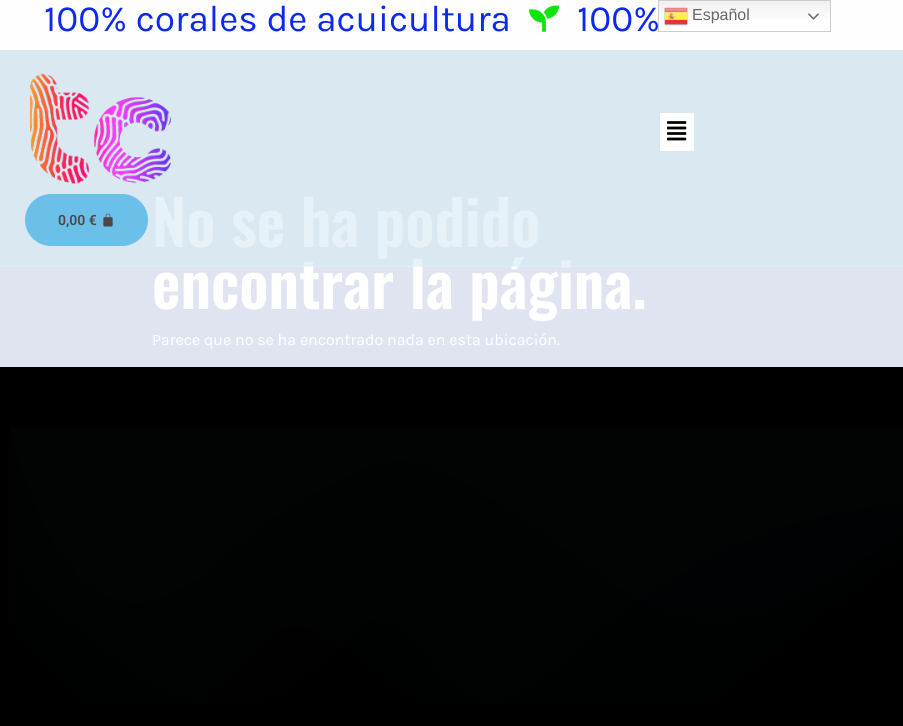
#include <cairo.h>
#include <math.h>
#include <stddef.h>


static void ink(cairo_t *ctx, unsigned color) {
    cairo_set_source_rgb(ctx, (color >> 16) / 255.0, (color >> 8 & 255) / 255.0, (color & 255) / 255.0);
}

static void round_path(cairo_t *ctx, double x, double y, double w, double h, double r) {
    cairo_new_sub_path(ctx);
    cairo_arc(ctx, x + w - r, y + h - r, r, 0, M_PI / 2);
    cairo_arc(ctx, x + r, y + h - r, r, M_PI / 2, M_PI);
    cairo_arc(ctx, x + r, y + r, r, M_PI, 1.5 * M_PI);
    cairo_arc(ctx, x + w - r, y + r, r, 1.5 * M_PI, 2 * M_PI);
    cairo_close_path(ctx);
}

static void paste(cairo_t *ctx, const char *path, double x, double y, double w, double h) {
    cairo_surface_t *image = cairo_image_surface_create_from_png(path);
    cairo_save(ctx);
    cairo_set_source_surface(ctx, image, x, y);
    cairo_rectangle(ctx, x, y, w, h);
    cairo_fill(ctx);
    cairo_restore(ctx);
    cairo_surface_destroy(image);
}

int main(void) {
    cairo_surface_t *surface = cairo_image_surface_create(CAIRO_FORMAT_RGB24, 903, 726);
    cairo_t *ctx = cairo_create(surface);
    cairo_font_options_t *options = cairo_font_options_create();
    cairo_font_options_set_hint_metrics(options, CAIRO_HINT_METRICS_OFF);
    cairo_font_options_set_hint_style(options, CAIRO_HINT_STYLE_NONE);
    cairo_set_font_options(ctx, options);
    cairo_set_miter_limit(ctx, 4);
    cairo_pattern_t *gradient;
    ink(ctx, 0xDFE4F0);
    cairo_paint(ctx);
    ink(ctx, 0xFEFEFF);
    cairo_rectangle(ctx, 0, 0, 903, 50);
    cairo_fill(ctx);
    cairo_select_font_face(ctx, "Karla", CAIRO_FONT_SLANT_NORMAL, CAIRO_FONT_WEIGHT_NORMAL);
    cairo_set_font_size(ctx, 37);
    ink(ctx, 0x0D29EF);
    cairo_move_to(ctx, 44, 31);
    cairo_show_text(ctx, "100% corales de acuicultura");
    paste(ctx, "media/1.png", 529, 5, 30, 27);
    cairo_move_to(ctx, 577, 31);
    cairo_show_text(ctx, "100%");
    cairo_select_font_face(ctx, "Oswald SemiBold", CAIRO_FONT_SLANT_NORMAL, CAIRO_FONT_WEIGHT_NORMAL);
    cairo_set_font_size(ctx, 62);
    ink(ctx, 0xFFFFFF);
    cairo_move_to(ctx, 152, 247);
    cairo_show_text(ctx, "No se ha podido");
    cairo_move_to(ctx, 152, 309);
    cairo_show_text(ctx, "encontrar la página.");
    cairo_set_source_rgba(ctx, 0.839, 0.914, 0.953, 0.62);
    cairo_rectangle(ctx, 0, 50, 903, 217);
    cairo_fill(ctx);
    cairo_set_source_rgba(ctx, 1, 1, 1, 0.18);
    cairo_rectangle(ctx, 0, 266, 903, 1);
    cairo_fill(ctx);
    paste(ctx, "media/2.png", 30, 73, 141, 111);
    ink(ctx, 0xFFFFFF);
    cairo_rectangle(ctx, 660, 113, 34, 38);
    cairo_fill(ctx);
    paste(ctx, "media/3.png", 667, 121, 20, 20);
    ink(ctx, 0x6AC0E9);
    round_path(ctx, 25, 194, 123, 52, 26);
    cairo_fill(ctx);
    cairo_select_font_face(ctx, "Roboto SemiBold", CAIRO_FONT_SLANT_NORMAL, CAIRO_FONT_WEIGHT_NORMAL);
    cairo_set_font_size(ctx, 14);
    ink(ctx, 0x4D4848);
    cairo_move_to(ctx, 58, 225);
    cairo_show_text(ctx, "0,00 €");
    paste(ctx, "media/4.png", 103, 213, 10, 14);
    cairo_select_font_face(ctx, "Karla", CAIRO_FONT_SLANT_NORMAL, CAIRO_FONT_WEIGHT_NORMAL);
    cairo_set_font_size(ctx, 16);
    ink(ctx, 0xFFFFFF);
    cairo_move_to(ctx, 152, 345);
    cairo_show_text(ctx, "Parece que no se ha encontrado nada en esta ubicación.");
    ink(ctx, 0x000000);
    cairo_rectangle(ctx, 0, 367, 903, 359);
    cairo_fill(ctx);
    paste(ctx, "media/5.png", 10, 427, 893, 276);
    gradient = cairo_pattern_create_linear(451, 367, 452, 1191);
    cairo_pattern_add_color_stop_rgba(gradient, 0, 0, 0, 0, 0.82);
    cairo_pattern_add_color_stop_rgba(gradient, 1, 0, 0, 0, 0.9);
    cairo_set_source(ctx, gradient);
    cairo_pattern_destroy(gradient);
    cairo_rectangle(ctx, 10, 427, 893, 276);
    cairo_fill(ctx);
    gradient = cairo_pattern_create_linear(745, 0, 745, 32);
    cairo_pattern_add_color_stop_rgba(gradient, 0, 0.937, 0.937, 0.937, 1);
    cairo_pattern_add_color_stop_rgba(gradient, 0.7, 1, 1, 1, 1);
    cairo_set_source(ctx, gradient);
    cairo_pattern_destroy(gradient);
    cairo_rectangle(ctx, 659, 1, 171, 18);
    cairo_fill(ctx);
    cairo_rectangle(ctx, 658.5, 0.5, 172, 31);
    ink(ctx, 0xCCCCCC);
    cairo_set_line_width(ctx, 1);
    cairo_stroke(ctx);
    paste(ctx, "media/6.png", 664, 7, 24, 19);
    cairo_select_font_face(ctx, "Liberation Sans", CAIRO_FONT_SLANT_NORMAL, CAIRO_FONT_WEIGHT_NORMAL);
    ink(ctx, 0x666666);
    cairo_move_to(ctx, 692, 20);
    cairo_show_text(ctx, "Español");
    paste(ctx, "media/7.png", 808, 13, 11, 7);
    cairo_surface_write_to_png(surface, "image.png");
    cairo_font_options_destroy(options);
    cairo_destroy(ctx);
    cairo_surface_destroy(surface);
    return 0;
}
